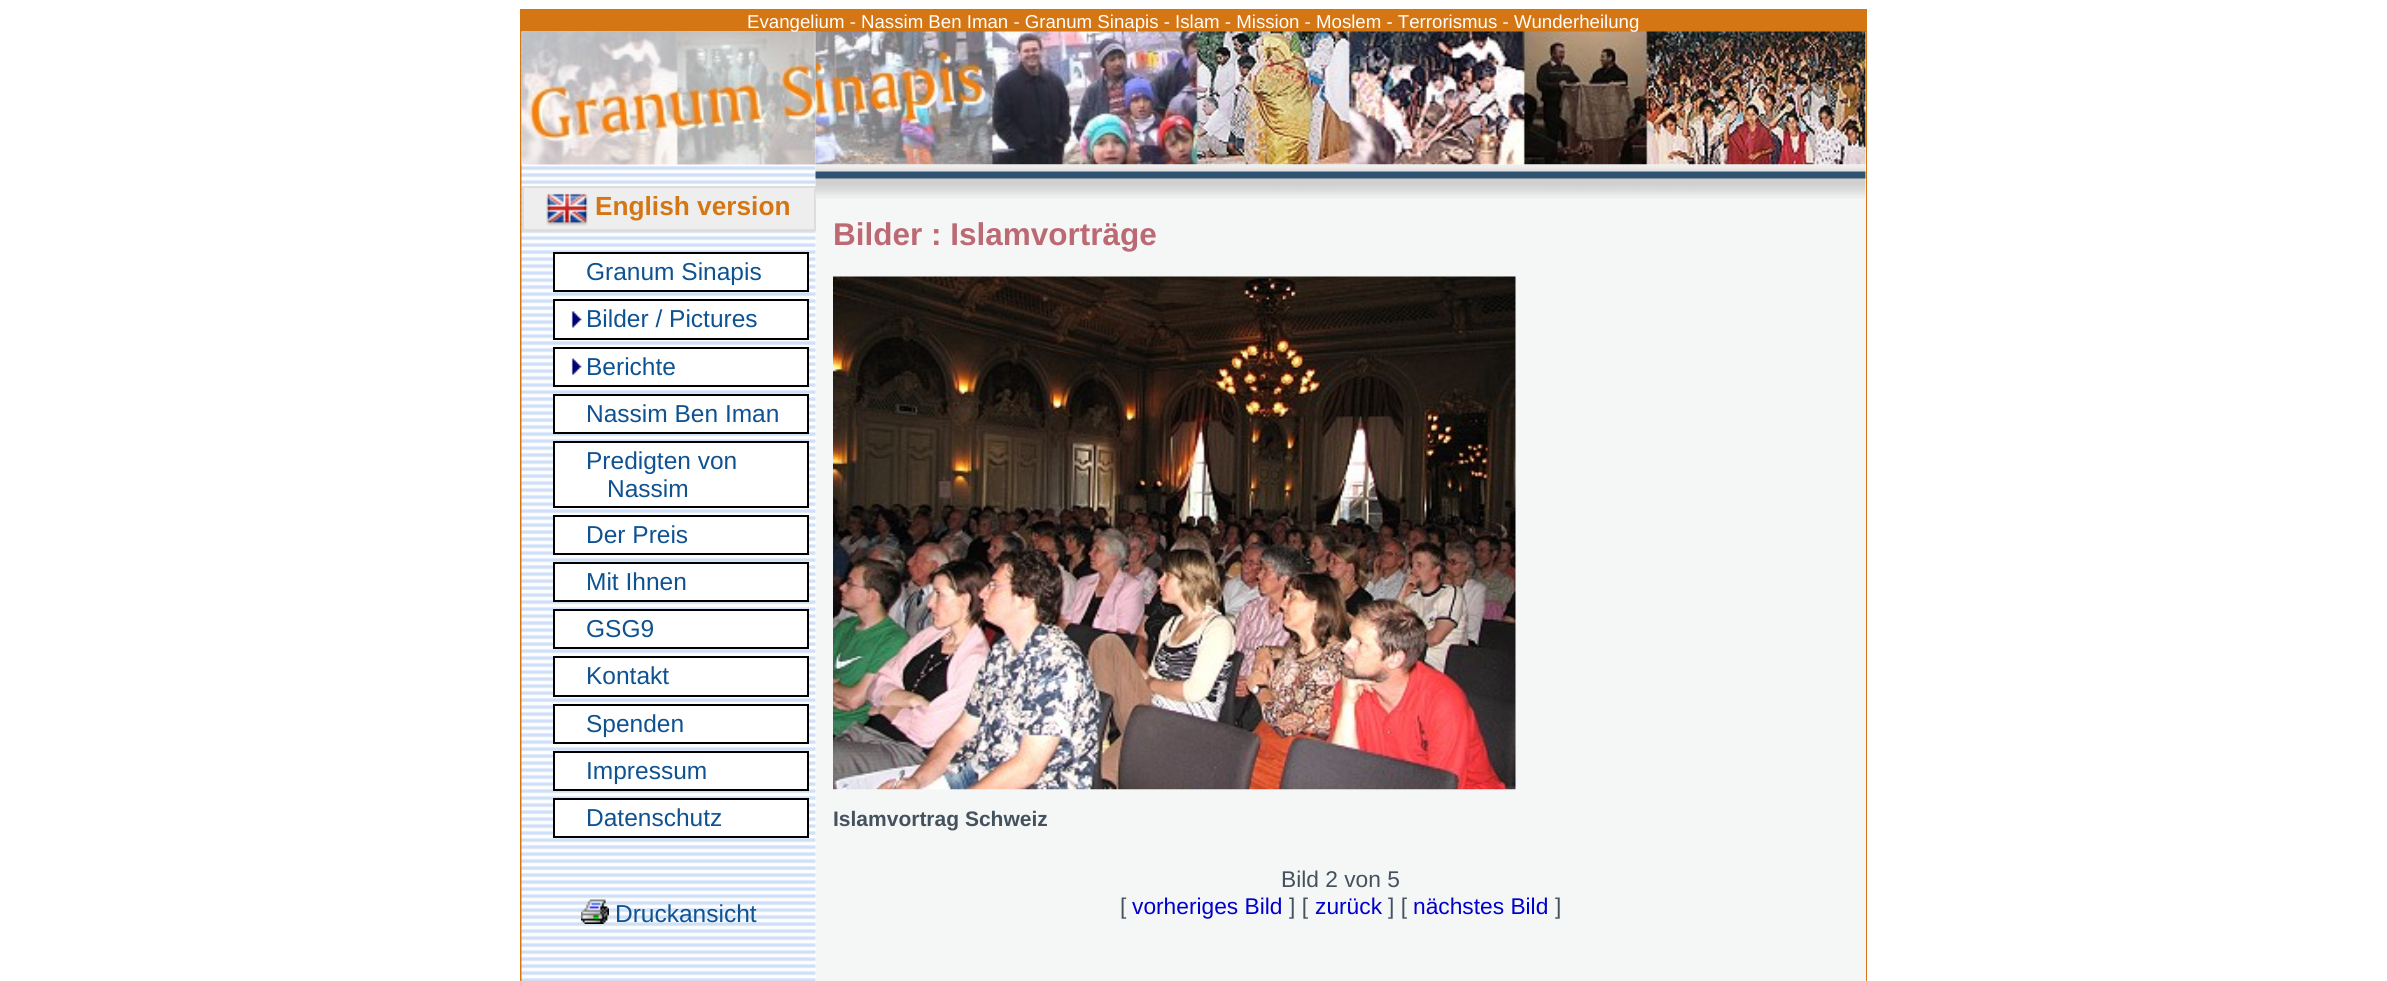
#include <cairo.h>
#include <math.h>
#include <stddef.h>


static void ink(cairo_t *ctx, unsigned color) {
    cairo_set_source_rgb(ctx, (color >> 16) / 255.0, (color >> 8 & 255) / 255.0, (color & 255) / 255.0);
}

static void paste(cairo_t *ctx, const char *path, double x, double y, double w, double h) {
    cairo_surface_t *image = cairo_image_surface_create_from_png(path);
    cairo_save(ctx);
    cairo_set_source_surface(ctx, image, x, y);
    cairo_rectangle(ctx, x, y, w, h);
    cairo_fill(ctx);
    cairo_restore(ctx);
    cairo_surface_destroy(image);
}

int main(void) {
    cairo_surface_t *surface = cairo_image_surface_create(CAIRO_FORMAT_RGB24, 2387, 981);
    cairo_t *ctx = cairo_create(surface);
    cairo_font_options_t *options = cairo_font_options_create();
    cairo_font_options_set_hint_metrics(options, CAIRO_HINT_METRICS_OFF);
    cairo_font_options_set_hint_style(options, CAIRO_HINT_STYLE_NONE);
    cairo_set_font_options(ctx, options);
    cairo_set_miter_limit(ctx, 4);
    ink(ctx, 0xFFFFFF);
    cairo_paint(ctx);
    cairo_rectangle(ctx, 521, 10, 1345, 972);
    ink(ctx, 0xD57614);
    cairo_stroke(ctx);
    cairo_rectangle(ctx, 522, 11, 1343, 21);
    cairo_fill(ctx);
    paste(ctx, "media/1.png", 521, 31, 295, 950);
    ink(ctx, 0xFFFFFF);
    cairo_rectangle(ctx, 522, 32, 294, 132);
    cairo_fill(ctx);
    paste(ctx, "media/2.png", 521, 31, 295, 134);
    cairo_rectangle(ctx, 1865, 32, 1, 168);
    cairo_fill(ctx);
    paste(ctx, "media/7.png", 815, 31, 1051, 134);
    cairo_select_font_face(ctx, "Liberation Sans", CAIRO_FONT_SLANT_NORMAL, CAIRO_FONT_WEIGHT_NORMAL);
    cairo_set_font_size(ctx, 18.65);
    cairo_move_to(ctx, 747, 28);
    cairo_show_text(ctx, "Evangelium - Nassim Ben Iman - Granum Sinapis - Islam - Mission - Moslem - Terrorismus - Wunderheilung");
    ink(ctx, 0xEEEEEE);
    cairo_rectangle(ctx, 523, 187, 292, 43);
    cairo_fill_preserve(ctx);
    ink(ctx, 0xDDDDDD);
    cairo_stroke(ctx);
    paste(ctx, "media/3.png", 546, 193, 42, 33);
    cairo_select_font_face(ctx, "Liberation Sans", CAIRO_FONT_SLANT_NORMAL, CAIRO_FONT_WEIGHT_BOLD);
    cairo_set_font_size(ctx, 26.25);
    ink(ctx, 0xD57614);
    cairo_move_to(ctx, 595, 215);
    cairo_show_text(ctx, "English version");
    ink(ctx, 0xFFFFFF);
    cairo_rectangle(ctx, 554, 253, 254, 38);
    cairo_fill_preserve(ctx);
    ink(ctx, 0x000000);
    cairo_stroke(ctx);
    cairo_select_font_face(ctx, "Liberation Sans", CAIRO_FONT_SLANT_NORMAL, CAIRO_FONT_WEIGHT_NORMAL);
    cairo_set_font_size(ctx, 24.5);
    ink(ctx, 0x0E5292);
    cairo_move_to(ctx, 586, 280);
    cairo_show_text(ctx, "Granum Sinapis");
    ink(ctx, 0xFFFFFF);
    cairo_rectangle(ctx, 554, 300, 254, 39);
    cairo_fill_preserve(ctx);
    ink(ctx, 0x000000);
    cairo_stroke(ctx);
    paste(ctx, "media/4.png", 571, 311, 11, 17);
    ink(ctx, 0x0E5292);
    cairo_move_to(ctx, 586, 327);
    cairo_show_text(ctx, "Bilder / Pictures");
    ink(ctx, 0xFFFFFF);
    cairo_rectangle(ctx, 554, 348, 254, 38);
    cairo_fill_preserve(ctx);
    ink(ctx, 0x000000);
    cairo_stroke(ctx);
    paste(ctx, "media/5.png", 571, 358, 11, 17);
    ink(ctx, 0x0E5292);
    cairo_move_to(ctx, 586, 375);
    cairo_show_text(ctx, "Berichte");
    ink(ctx, 0xFFFFFF);
    cairo_rectangle(ctx, 554, 395, 254, 38);
    cairo_fill_preserve(ctx);
    ink(ctx, 0x000000);
    cairo_stroke(ctx);
    ink(ctx, 0x0E5292);
    cairo_move_to(ctx, 586, 422);
    cairo_show_text(ctx, "Nassim Ben Iman");
    ink(ctx, 0xFFFFFF);
    cairo_rectangle(ctx, 554, 442, 254, 65);
    cairo_fill_preserve(ctx);
    ink(ctx, 0x000000);
    cairo_stroke(ctx);
    ink(ctx, 0x0E5292);
    cairo_move_to(ctx, 586, 469);
    cairo_show_text(ctx, "Predigten von");
    cairo_move_to(ctx, 607, 497);
    cairo_show_text(ctx, "Nassim");
    ink(ctx, 0xFFFFFF);
    cairo_rectangle(ctx, 554, 516, 254, 38);
    cairo_fill_preserve(ctx);
    ink(ctx, 0x000000);
    cairo_stroke(ctx);
    ink(ctx, 0x0E5292);
    cairo_move_to(ctx, 586, 543);
    cairo_show_text(ctx, "Der Preis");
    ink(ctx, 0xFFFFFF);
    cairo_rectangle(ctx, 554, 563, 254, 38);
    cairo_fill_preserve(ctx);
    ink(ctx, 0x000000);
    cairo_stroke(ctx);
    ink(ctx, 0x0E5292);
    cairo_move_to(ctx, 586, 590);
    cairo_show_text(ctx, "Mit Ihnen");
    ink(ctx, 0xFFFFFF);
    cairo_rectangle(ctx, 554, 610, 254, 38);
    cairo_fill_preserve(ctx);
    ink(ctx, 0x000000);
    cairo_stroke(ctx);
    ink(ctx, 0x0E5292);
    cairo_move_to(ctx, 586, 637);
    cairo_show_text(ctx, "GSG9");
    ink(ctx, 0xFFFFFF);
    cairo_rectangle(ctx, 554, 657, 254, 39);
    cairo_fill_preserve(ctx);
    ink(ctx, 0x000000);
    cairo_stroke(ctx);
    ink(ctx, 0x0E5292);
    cairo_move_to(ctx, 586, 684);
    cairo_show_text(ctx, "Kontakt");
    ink(ctx, 0xFFFFFF);
    cairo_rectangle(ctx, 554, 705, 254, 38);
    cairo_fill_preserve(ctx);
    ink(ctx, 0x000000);
    cairo_stroke(ctx);
    ink(ctx, 0x0E5292);
    cairo_move_to(ctx, 586, 732);
    cairo_show_text(ctx, "Spenden");
    ink(ctx, 0xFFFFFF);
    cairo_rectangle(ctx, 554, 752, 254, 38);
    cairo_fill_preserve(ctx);
    ink(ctx, 0x000000);
    cairo_stroke(ctx);
    ink(ctx, 0x0E5292);
    cairo_move_to(ctx, 586, 779);
    cairo_show_text(ctx, "Impressum");
    ink(ctx, 0xFFFFFF);
    cairo_rectangle(ctx, 554, 799, 254, 38);
    cairo_fill_preserve(ctx);
    ink(ctx, 0x000000);
    cairo_stroke(ctx);
    ink(ctx, 0x0E5292);
    cairo_move_to(ctx, 586, 826);
    cairo_show_text(ctx, "Datenschutz");
    paste(ctx, "media/6.png", 581, 899, 28, 25);
    cairo_move_to(ctx, 615, 922);
    cairo_show_text(ctx, "Druckansicht");
    ink(ctx, 0xF5F7F6);
    cairo_rectangle(ctx, 816, 200, 1050, 781);
    cairo_fill(ctx);
    paste(ctx, "media/8.png", 815, 164, 1051, 36);
    cairo_select_font_face(ctx, "Liberation Sans", CAIRO_FONT_SLANT_NORMAL, CAIRO_FONT_WEIGHT_BOLD);
    cairo_set_font_size(ctx, 31.5);
    ink(ctx, 0xBD6973);
    cairo_move_to(ctx, 833, 245);
    cairo_show_text(ctx, "Bilder : Islamvorträge");
    paste(ctx, "media/9.png", 833, 276, 683, 514);
    cairo_set_font_size(ctx, 21);
    ink(ctx, 0x45525D);
    cairo_move_to(ctx, 833, 826);
    cairo_show_text(ctx, "Islamvortrag Schweiz");
    cairo_select_font_face(ctx, "Liberation Sans", CAIRO_FONT_SLANT_NORMAL, CAIRO_FONT_WEIGHT_NORMAL);
    cairo_set_font_size(ctx, 22.75);
    cairo_move_to(ctx, 1281, 887);
    cairo_show_text(ctx, "Bild 2 von 5");
    cairo_move_to(ctx, 1120, 914);
    cairo_show_text(ctx, "[");
    ink(ctx, 0x0000CC);
    cairo_move_to(ctx, 1132, 914);
    cairo_show_text(ctx, "vorheriges Bild");
    ink(ctx, 0x45525D);
    cairo_move_to(ctx, 1289, 914);
    cairo_show_text(ctx, "] [");
    ink(ctx, 0x0000CC);
    cairo_move_to(ctx, 1315, 914);
    cairo_show_text(ctx, "zurück");
    ink(ctx, 0x45525D);
    cairo_move_to(ctx, 1388, 914);
    cairo_show_text(ctx, "] [");
    ink(ctx, 0x0000CC);
    cairo_move_to(ctx, 1413, 914);
    cairo_show_text(ctx, "nächstes Bild");
    ink(ctx, 0x45525D);
    cairo_move_to(ctx, 1555, 914);
    cairo_show_text(ctx, "]");
    cairo_surface_write_to_png(surface, "image.png");
    cairo_font_options_destroy(options);
    cairo_destroy(ctx);
    cairo_surface_destroy(surface);
    return 0;
}
